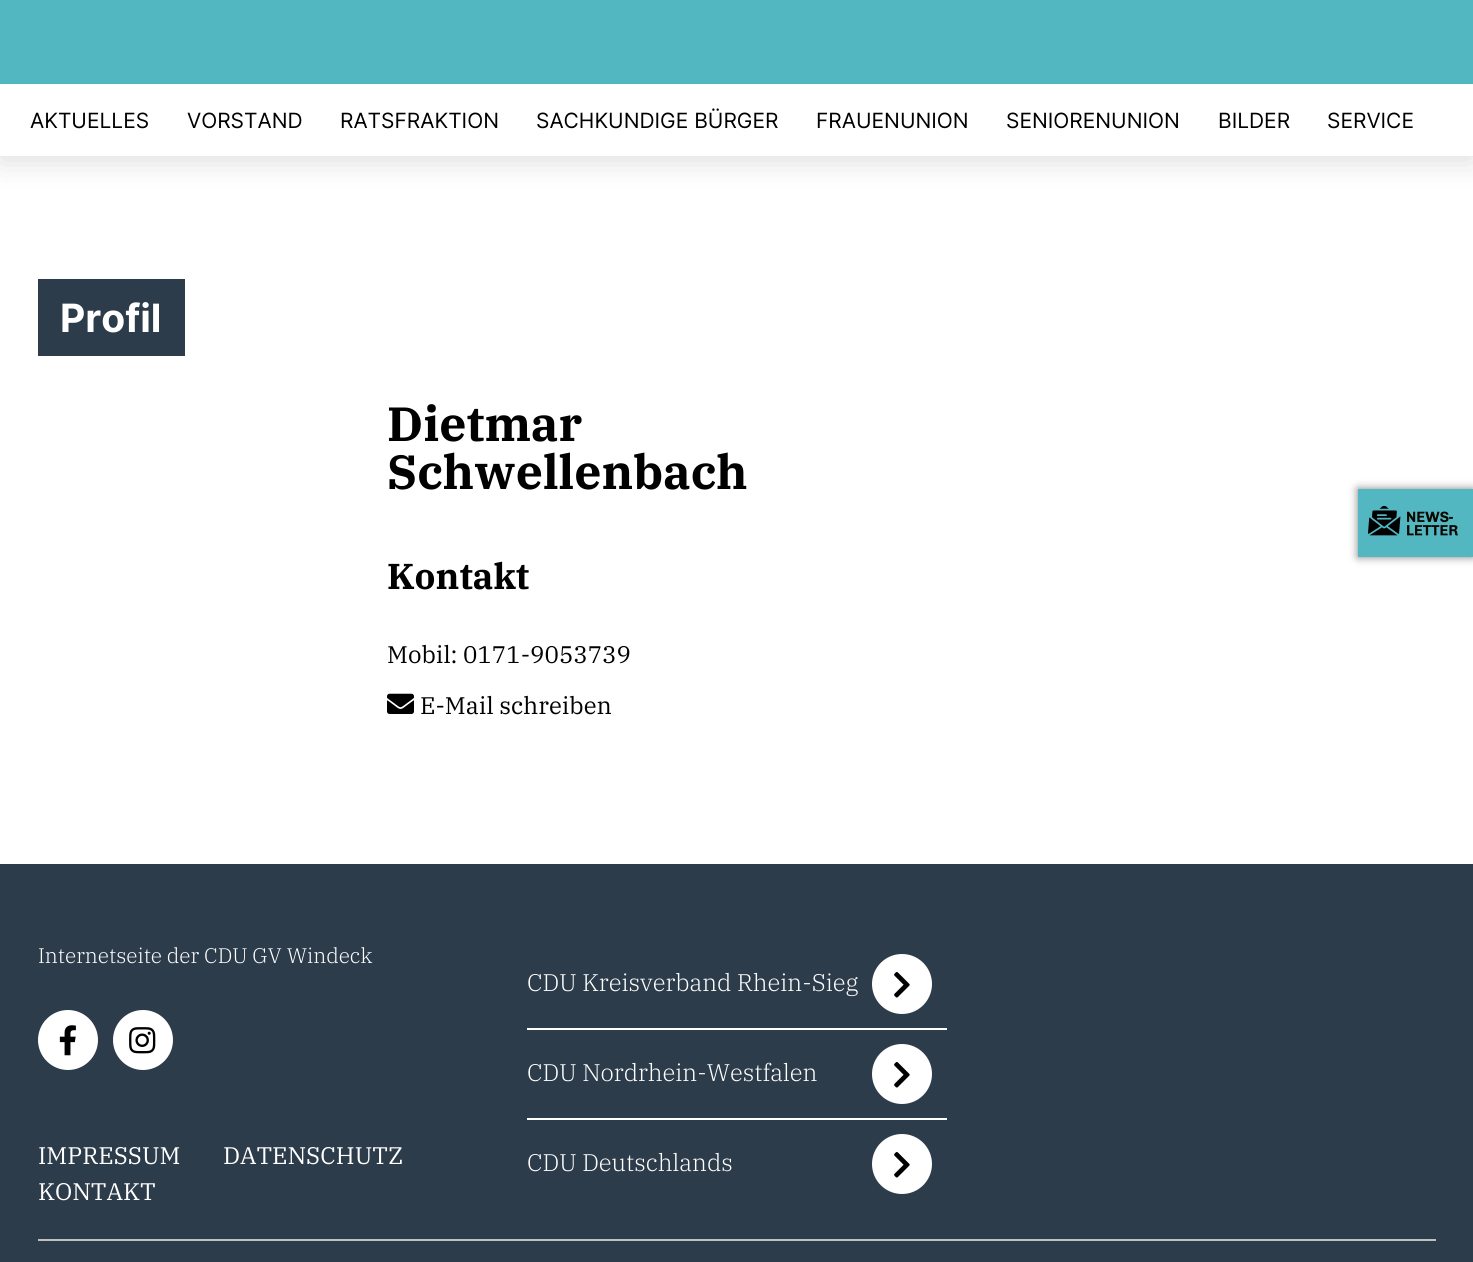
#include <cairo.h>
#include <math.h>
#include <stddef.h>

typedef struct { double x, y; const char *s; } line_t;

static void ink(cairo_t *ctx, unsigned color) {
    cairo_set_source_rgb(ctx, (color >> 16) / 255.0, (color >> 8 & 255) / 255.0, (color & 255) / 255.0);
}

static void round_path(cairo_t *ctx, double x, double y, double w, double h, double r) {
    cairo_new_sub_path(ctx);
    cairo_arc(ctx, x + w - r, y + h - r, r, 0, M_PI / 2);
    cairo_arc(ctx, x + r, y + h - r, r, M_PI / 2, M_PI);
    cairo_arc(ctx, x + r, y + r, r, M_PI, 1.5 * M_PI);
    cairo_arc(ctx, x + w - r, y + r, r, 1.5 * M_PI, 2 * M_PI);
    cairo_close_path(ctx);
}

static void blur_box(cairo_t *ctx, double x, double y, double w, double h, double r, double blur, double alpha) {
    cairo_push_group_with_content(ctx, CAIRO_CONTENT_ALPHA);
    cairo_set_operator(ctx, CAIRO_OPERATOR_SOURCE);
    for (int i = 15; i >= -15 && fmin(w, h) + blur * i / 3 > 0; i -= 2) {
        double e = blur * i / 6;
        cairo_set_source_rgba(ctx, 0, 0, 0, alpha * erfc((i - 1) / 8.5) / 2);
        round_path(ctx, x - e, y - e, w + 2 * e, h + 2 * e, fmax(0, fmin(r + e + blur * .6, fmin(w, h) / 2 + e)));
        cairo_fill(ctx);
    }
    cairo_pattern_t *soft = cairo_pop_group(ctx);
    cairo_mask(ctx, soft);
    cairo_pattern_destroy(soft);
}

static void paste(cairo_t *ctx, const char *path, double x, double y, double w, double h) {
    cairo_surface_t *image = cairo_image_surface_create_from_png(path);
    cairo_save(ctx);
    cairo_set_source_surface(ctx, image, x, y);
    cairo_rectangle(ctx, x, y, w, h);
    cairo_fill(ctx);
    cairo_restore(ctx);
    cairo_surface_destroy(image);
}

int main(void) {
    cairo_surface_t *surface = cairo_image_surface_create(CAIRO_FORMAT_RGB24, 1473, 1262);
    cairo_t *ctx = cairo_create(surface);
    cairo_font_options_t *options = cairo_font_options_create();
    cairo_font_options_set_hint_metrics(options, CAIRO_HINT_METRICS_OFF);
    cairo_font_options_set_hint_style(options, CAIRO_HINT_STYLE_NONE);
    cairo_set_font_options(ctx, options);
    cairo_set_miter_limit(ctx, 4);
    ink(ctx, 0xFFFFFF);
    cairo_paint(ctx);
    ink(ctx, 0x000000);
    blur_box(ctx, 0, -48, 1473, 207, 0, 16, 0.15);
    ink(ctx, 0x52B7C1);
    cairo_rectangle(ctx, 0, 0, 1473, 84);
    cairo_fill(ctx);
    ink(ctx, 0xFFFFFF);
    cairo_rectangle(ctx, 0, 84, 1473, 72);
    cairo_fill(ctx);
    cairo_select_font_face(ctx, "Inter", CAIRO_FONT_SLANT_NORMAL, CAIRO_FONT_WEIGHT_NORMAL);
    cairo_set_font_size(ctx, 21);
    ink(ctx, 0x000000);
    {
        static const line_t items[] = {
            {30, 128, "AKTUELLES"},
            {187, 128, "VORSTAND"},
            {340, 128, "RATSFRAKTION"},
            {536, 128, "SACHKUNDIGE BÜRGER"},
            {816, 128, "FRAUENUNION"},
            {1006, 128, "SENIORENUNION"},
            {1218, 128, "BILDER"},
            {1327, 128, "SERVICE"},
        };
        for (size_t i = 0; i < sizeof items / sizeof *items; i++) {
            cairo_move_to(ctx, items[i].x, items[i].y);
            cairo_show_text(ctx, items[i].s);
        }
    }
    ink(ctx, 0x2D3C4B);
    cairo_rectangle(ctx, 38, 279, 147, 77);
    cairo_fill(ctx);
    cairo_select_font_face(ctx, "Inter", CAIRO_FONT_SLANT_NORMAL, CAIRO_FONT_WEIGHT_BOLD);
    cairo_set_font_size(ctx, 39);
    ink(ctx, 0xFFFFFF);
    cairo_move_to(ctx, 60, 332);
    cairo_show_text(ctx, "Profil");
    cairo_select_font_face(ctx, "IBM Plex Serif", CAIRO_FONT_SLANT_NORMAL, CAIRO_FONT_WEIGHT_BOLD);
    cairo_set_font_size(ctx, 48);
    ink(ctx, 0x000000);
    cairo_move_to(ctx, 387, 441);
    cairo_show_text(ctx, "Dietmar");
    cairo_move_to(ctx, 387, 489);
    cairo_show_text(ctx, "Schwellenbach");
    cairo_set_font_size(ctx, 36);
    cairo_move_to(ctx, 387, 589);
    cairo_show_text(ctx, "Kontakt");
    cairo_select_font_face(ctx, "IBM Plex Serif", CAIRO_FONT_SLANT_NORMAL, CAIRO_FONT_WEIGHT_NORMAL);
    cairo_set_font_size(ctx, 24);
    cairo_move_to(ctx, 387, 663);
    cairo_show_text(ctx, "Mobil: 0171-9053739");
    paste(ctx, "media/1.png", 387, 693, 27, 21);
    cairo_move_to(ctx, 420, 714);
    cairo_show_text(ctx, "E-Mail schreiben");
    ink(ctx, 0x000000);
    blur_box(ctx, 1358, 489, 115, 68, 0, 4.5, 0.5);
    ink(ctx, 0x52B7C1);
    cairo_rectangle(ctx, 1358, 489, 115, 68);
    cairo_fill(ctx);
    paste(ctx, "media/2.png", 1368, 506, 90, 30);
    ink(ctx, 0x2D3C4B);
    cairo_rectangle(ctx, 0, 864, 1473, 398);
    cairo_fill(ctx);
    cairo_select_font_face(ctx, "IBM Plex Serif Light", CAIRO_FONT_SLANT_NORMAL, CAIRO_FONT_WEIGHT_NORMAL);
    cairo_set_font_size(ctx, 21);
    ink(ctx, 0xFFFFFF);
    cairo_move_to(ctx, 38, 963);
    cairo_show_text(ctx, "Internetseite der CDU GV Windeck");
    cairo_new_path(ctx);
    cairo_arc(ctx, 68, 1040, 30, 0, 2 * M_PI);
    cairo_fill(ctx);
    paste(ctx, "media/3.png", 59, 1025, 17, 31);
    cairo_arc(ctx, 143, 1040, 30, 0, 2 * M_PI);
    cairo_fill(ctx);
    paste(ctx, "media/4.png", 129, 1027, 27, 27);
    cairo_select_font_face(ctx, "IBM Plex Serif", CAIRO_FONT_SLANT_NORMAL, CAIRO_FONT_WEIGHT_NORMAL);
    cairo_set_font_size(ctx, 24);
    {
        static const line_t items[] = {
            {38, 1164, "IMPRESSUM"},
            {223, 1164, "DATENSCHUTZ"},
            {38, 1200, "KONTAKT"},
        };
        for (size_t i = 0; i < sizeof items / sizeof *items; i++) {
            cairo_move_to(ctx, items[i].x, items[i].y);
            cairo_show_text(ctx, items[i].s);
        }
    }
    cairo_rectangle(ctx, 527, 1028, 420, 2);
    cairo_fill(ctx);
    cairo_select_font_face(ctx, "IBM Plex Serif Light", CAIRO_FONT_SLANT_NORMAL, CAIRO_FONT_WEIGHT_NORMAL);
    cairo_move_to(ctx, 527, 991);
    cairo_show_text(ctx, "CDU Kreisverband Rhein-Sieg");
    cairo_new_path(ctx);
    cairo_arc(ctx, 902, 984, 30, 0, 2 * M_PI);
    cairo_fill(ctx);
    paste(ctx, "media/5.png", 894, 972, 16, 26);
    cairo_rectangle(ctx, 527, 1118, 420, 2);
    cairo_fill(ctx);
    cairo_move_to(ctx, 527, 1081);
    cairo_show_text(ctx, "CDU Nordrhein-Westfalen");
    cairo_new_path(ctx);
    cairo_arc(ctx, 902, 1074, 30, 0, 2 * M_PI);
    cairo_fill(ctx);
    paste(ctx, "media/5.png", 894, 1062, 16, 26);
    cairo_move_to(ctx, 527, 1171);
    cairo_show_text(ctx, "CDU Deutschlands");
    cairo_new_path(ctx);
    cairo_arc(ctx, 902, 1164, 30, 0, 2 * M_PI);
    cairo_fill(ctx);
    paste(ctx, "media/5.png", 894, 1152, 16, 26);
    ink(ctx, 0xC0C0C0);
    cairo_rectangle(ctx, 38, 1239, 1398, 2);
    cairo_fill(ctx);
    cairo_surface_write_to_png(surface, "image.png");
    cairo_font_options_destroy(options);
    cairo_destroy(ctx);
    cairo_surface_destroy(surface);
    return 0;
}
